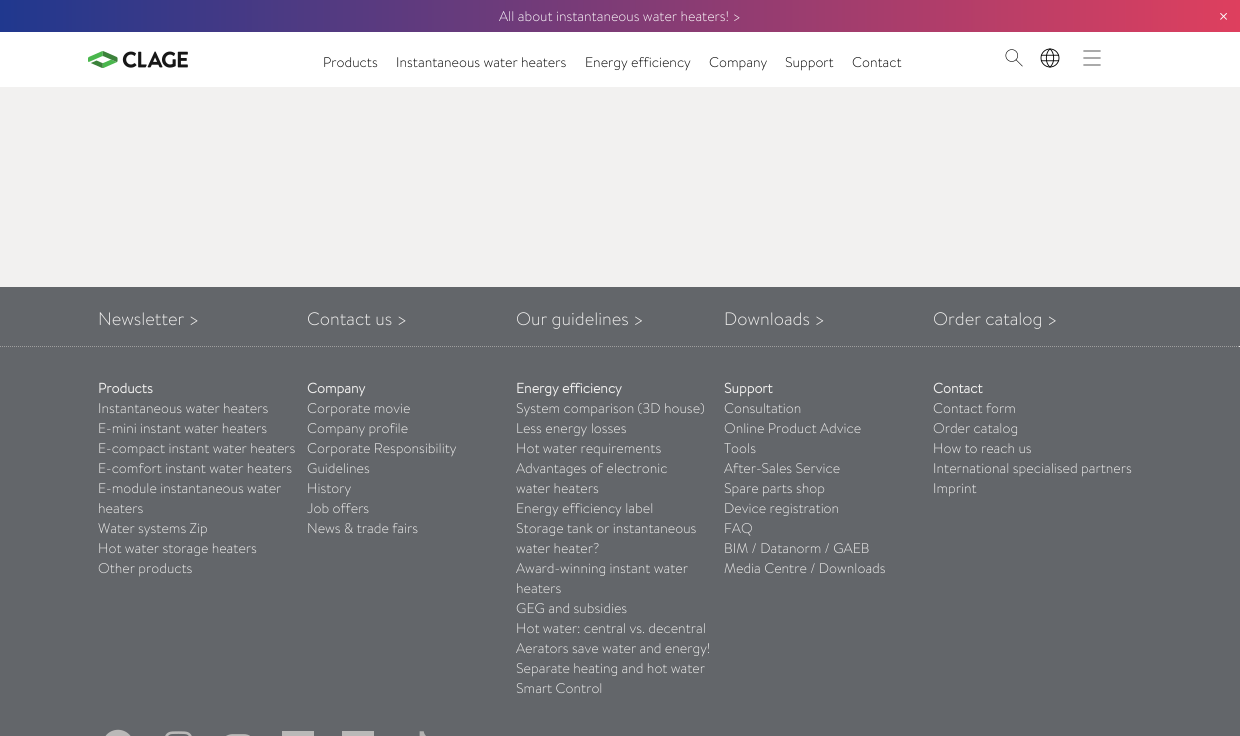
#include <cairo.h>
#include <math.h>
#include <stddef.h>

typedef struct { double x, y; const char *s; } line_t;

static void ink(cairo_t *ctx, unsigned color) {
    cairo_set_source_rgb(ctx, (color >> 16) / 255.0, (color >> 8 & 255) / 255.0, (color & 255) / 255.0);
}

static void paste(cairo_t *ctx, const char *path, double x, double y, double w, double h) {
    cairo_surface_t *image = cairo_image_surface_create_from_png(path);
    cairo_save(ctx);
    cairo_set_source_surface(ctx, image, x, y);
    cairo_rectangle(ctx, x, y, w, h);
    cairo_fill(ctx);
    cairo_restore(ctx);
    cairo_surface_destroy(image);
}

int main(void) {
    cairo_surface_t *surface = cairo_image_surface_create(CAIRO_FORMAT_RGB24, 1240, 736);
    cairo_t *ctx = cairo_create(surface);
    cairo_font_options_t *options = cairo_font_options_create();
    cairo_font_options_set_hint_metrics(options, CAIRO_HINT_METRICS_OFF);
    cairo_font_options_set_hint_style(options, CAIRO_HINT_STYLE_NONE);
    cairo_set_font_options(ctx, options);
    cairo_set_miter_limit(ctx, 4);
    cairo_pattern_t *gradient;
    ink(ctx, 0xF2F1F0);
    cairo_paint(ctx);
    ink(ctx, 0xFFFFFF);
    cairo_rectangle(ctx, 0, 32, 1240, 55);
    cairo_fill(ctx);
    gradient = cairo_pattern_create_linear(0, 16, 1240, 16);
    cairo_pattern_add_color_stop_rgba(gradient, 0, 0.125, 0.22, 0.557, 1);
    cairo_pattern_add_color_stop_rgba(gradient, 1, 0.871, 0.247, 0.369, 1);
    cairo_set_source(ctx, gradient);
    cairo_pattern_destroy(gradient);
    cairo_rectangle(ctx, 0, 0, 1240, 32);
    cairo_fill(ctx);
    cairo_select_font_face(ctx, "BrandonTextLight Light", CAIRO_FONT_SLANT_NORMAL, CAIRO_FONT_WEIGHT_NORMAL);
    cairo_set_font_size(ctx, 14);
    ink(ctx, 0xFFFFFF);
    cairo_move_to(ctx, 499, 21);
    cairo_show_text(ctx, "All about instantaneous water heaters! >");
    cairo_set_font_size(ctx, 22);
    cairo_move_to(ctx, 1217, 24);
    cairo_show_text(ctx, "×");
    paste(ctx, "media/1.png", 88, 51, 100, 17);
    cairo_set_font_size(ctx, 14);
    ink(ctx, 0x000000);
    {
        static const line_t items[] = {
            {323, 67, "Products"},
            {396, 67, "Instantaneous water heaters"},
            {585, 67, "Energy efficiency"},
            {709, 67, "Company"},
            {785, 67, "Support"},
            {852, 67, "Contact"},
        };
        for (size_t i = 0; i < sizeof items / sizeof *items; i++) {
            cairo_move_to(ctx, items[i].x, items[i].y);
            cairo_show_text(ctx, items[i].s);
        }
    }
    paste(ctx, "media/2.png", 1005, 49, 18, 18);
    paste(ctx, "media/3.png", 1040, 48, 20, 20);
    paste(ctx, "media/4.png", 1083, 50, 18, 16);
    ink(ctx, 0x63666A);
    cairo_rectangle(ctx, 0, 287, 1240, 449);
    cairo_fill(ctx);
    cairo_set_font_size(ctx, 18);
    ink(ctx, 0xF2F1F0);
    {
        static const line_t items[] = {
            {98, 325, "Newsletter >"},
            {307, 325, "Contact us >"},
            {516, 325, "Our guidelines >"},
            {724, 325, "Downloads >"},
            {933, 325, "Order catalog >"},
        };
        for (size_t i = 0; i < sizeof items / sizeof *items; i++) {
            cairo_move_to(ctx, items[i].x, items[i].y);
            cairo_show_text(ctx, items[i].s);
        }
    }
    cairo_new_path(ctx);
    cairo_move_to(ctx, 0, 346.5);
    cairo_line_to(ctx, 1240, 346.5);
    ink(ctx, 0x9F9F9F);
    cairo_set_line_width(ctx, 1);
    cairo_set_dash(ctx, (double[]){1, 1}, 2, 0);
    cairo_stroke(ctx);
    ink(ctx, 0xEEEEEE);
    cairo_rectangle(ctx, 1239, 346, 1, 1);
    cairo_fill(ctx);
    cairo_select_font_face(ctx, "BrandonTextLight", CAIRO_FONT_SLANT_NORMAL, CAIRO_FONT_WEIGHT_BOLD);
    cairo_set_font_size(ctx, 14);
    ink(ctx, 0xF2F1F0);
    cairo_move_to(ctx, 98, 393);
    cairo_show_text(ctx, "Products");
    cairo_select_font_face(ctx, "BrandonTextLight Light", CAIRO_FONT_SLANT_NORMAL, CAIRO_FONT_WEIGHT_NORMAL);
    {
        static const line_t items[] = {
            {98, 413, "Instantaneous water heaters"},
            {98, 433, "E-mini instant water heaters"},
            {98, 453, "E-compact instant water heaters"},
            {98, 473, "E-comfort instant water heaters"},
            {98, 493, "E-module instantaneous water"},
            {98, 513, "heaters"},
            {98, 533, "Water systems Zip"},
            {98, 553, "Hot water storage heaters"},
            {98, 573, "Other products"},
        };
        for (size_t i = 0; i < sizeof items / sizeof *items; i++) {
            cairo_move_to(ctx, items[i].x, items[i].y);
            cairo_show_text(ctx, items[i].s);
        }
    }
    cairo_select_font_face(ctx, "BrandonTextLight", CAIRO_FONT_SLANT_NORMAL, CAIRO_FONT_WEIGHT_BOLD);
    cairo_move_to(ctx, 307, 393);
    cairo_show_text(ctx, "Company");
    cairo_select_font_face(ctx, "BrandonTextLight Light", CAIRO_FONT_SLANT_NORMAL, CAIRO_FONT_WEIGHT_NORMAL);
    {
        static const line_t items[] = {
            {307, 413, "Corporate movie"},
            {307, 433, "Company profile"},
            {307, 453, "Corporate Responsibility"},
            {307, 473, "Guidelines"},
            {307, 493, "History"},
            {307, 513, "Job offers"},
            {307, 533, "News & trade fairs"},
        };
        for (size_t i = 0; i < sizeof items / sizeof *items; i++) {
            cairo_move_to(ctx, items[i].x, items[i].y);
            cairo_show_text(ctx, items[i].s);
        }
    }
    cairo_select_font_face(ctx, "BrandonTextLight", CAIRO_FONT_SLANT_NORMAL, CAIRO_FONT_WEIGHT_BOLD);
    cairo_move_to(ctx, 516, 393);
    cairo_show_text(ctx, "Energy efficiency");
    cairo_select_font_face(ctx, "BrandonTextLight Light", CAIRO_FONT_SLANT_NORMAL, CAIRO_FONT_WEIGHT_NORMAL);
    {
        static const line_t items[] = {
            {516, 413, "System comparison (3D house)"},
            {516, 433, "Less energy losses"},
            {516, 453, "Hot water requirements"},
            {516, 473, "Advantages of electronic"},
            {516, 493, "water heaters"},
            {516, 513, "Energy efficiency label"},
            {516, 533, "Storage tank or instantaneous"},
            {516, 553, "water heater?"},
            {516, 573, "Award-winning instant water"},
            {516, 593, "heaters"},
            {516, 613, "GEG and subsidies"},
            {516, 633, "Hot water: central vs. decentral"},
            {516, 653, "Aerators save water and energy!"},
            {516, 673, "Separate heating and hot water"},
            {516, 693, "Smart Control"},
        };
        for (size_t i = 0; i < sizeof items / sizeof *items; i++) {
            cairo_move_to(ctx, items[i].x, items[i].y);
            cairo_show_text(ctx, items[i].s);
        }
    }
    cairo_select_font_face(ctx, "BrandonTextLight", CAIRO_FONT_SLANT_NORMAL, CAIRO_FONT_WEIGHT_BOLD);
    cairo_move_to(ctx, 724, 393);
    cairo_show_text(ctx, "Support");
    cairo_select_font_face(ctx, "BrandonTextLight Light", CAIRO_FONT_SLANT_NORMAL, CAIRO_FONT_WEIGHT_NORMAL);
    {
        static const line_t items[] = {
            {724, 413, "Consultation"},
            {724, 433, "Online Product Advice"},
            {724, 453, "Tools"},
            {724, 473, "After-Sales Service"},
            {724, 493, "Spare parts shop"},
            {724, 513, "Device registration"},
            {724, 533, "FAQ"},
            {724, 553, "BIM / Datanorm / GAEB"},
            {724, 573, "Media Centre / Downloads"},
        };
        for (size_t i = 0; i < sizeof items / sizeof *items; i++) {
            cairo_move_to(ctx, items[i].x, items[i].y);
            cairo_show_text(ctx, items[i].s);
        }
    }
    cairo_select_font_face(ctx, "BrandonTextLight", CAIRO_FONT_SLANT_NORMAL, CAIRO_FONT_WEIGHT_BOLD);
    cairo_move_to(ctx, 933, 393);
    cairo_show_text(ctx, "Contact");
    cairo_select_font_face(ctx, "BrandonTextLight Light", CAIRO_FONT_SLANT_NORMAL, CAIRO_FONT_WEIGHT_NORMAL);
    {
        static const line_t items[] = {
            {933, 413, "Contact form"},
            {933, 433, "Order catalog"},
            {933, 453, "How to reach us"},
            {933, 473, "International specialised partners"},
            {933, 493, "Imprint"},
        };
        for (size_t i = 0; i < sizeof items / sizeof *items; i++) {
            cairo_move_to(ctx, items[i].x, items[i].y);
            cairo_show_text(ctx, items[i].s);
        }
    }
    paste(ctx, "media/5.png", 105, 729, 26, 7);
    paste(ctx, "media/6.png", 165, 731, 27, 5);
    paste(ctx, "media/7.png", 226, 734, 24, 2);
    ink(ctx, 0xBAB9B8);
    cairo_rectangle(ctx, 282, 731, 32, 5);
    cairo_fill(ctx);
    cairo_rectangle(ctx, 342, 731, 32, 5);
    cairo_fill(ctx);
    paste(ctx, "media/8.png", 419, 731, 7, 5);
    cairo_surface_write_to_png(surface, "image.png");
    cairo_font_options_destroy(options);
    cairo_destroy(ctx);
    cairo_surface_destroy(surface);
    return 0;
}
